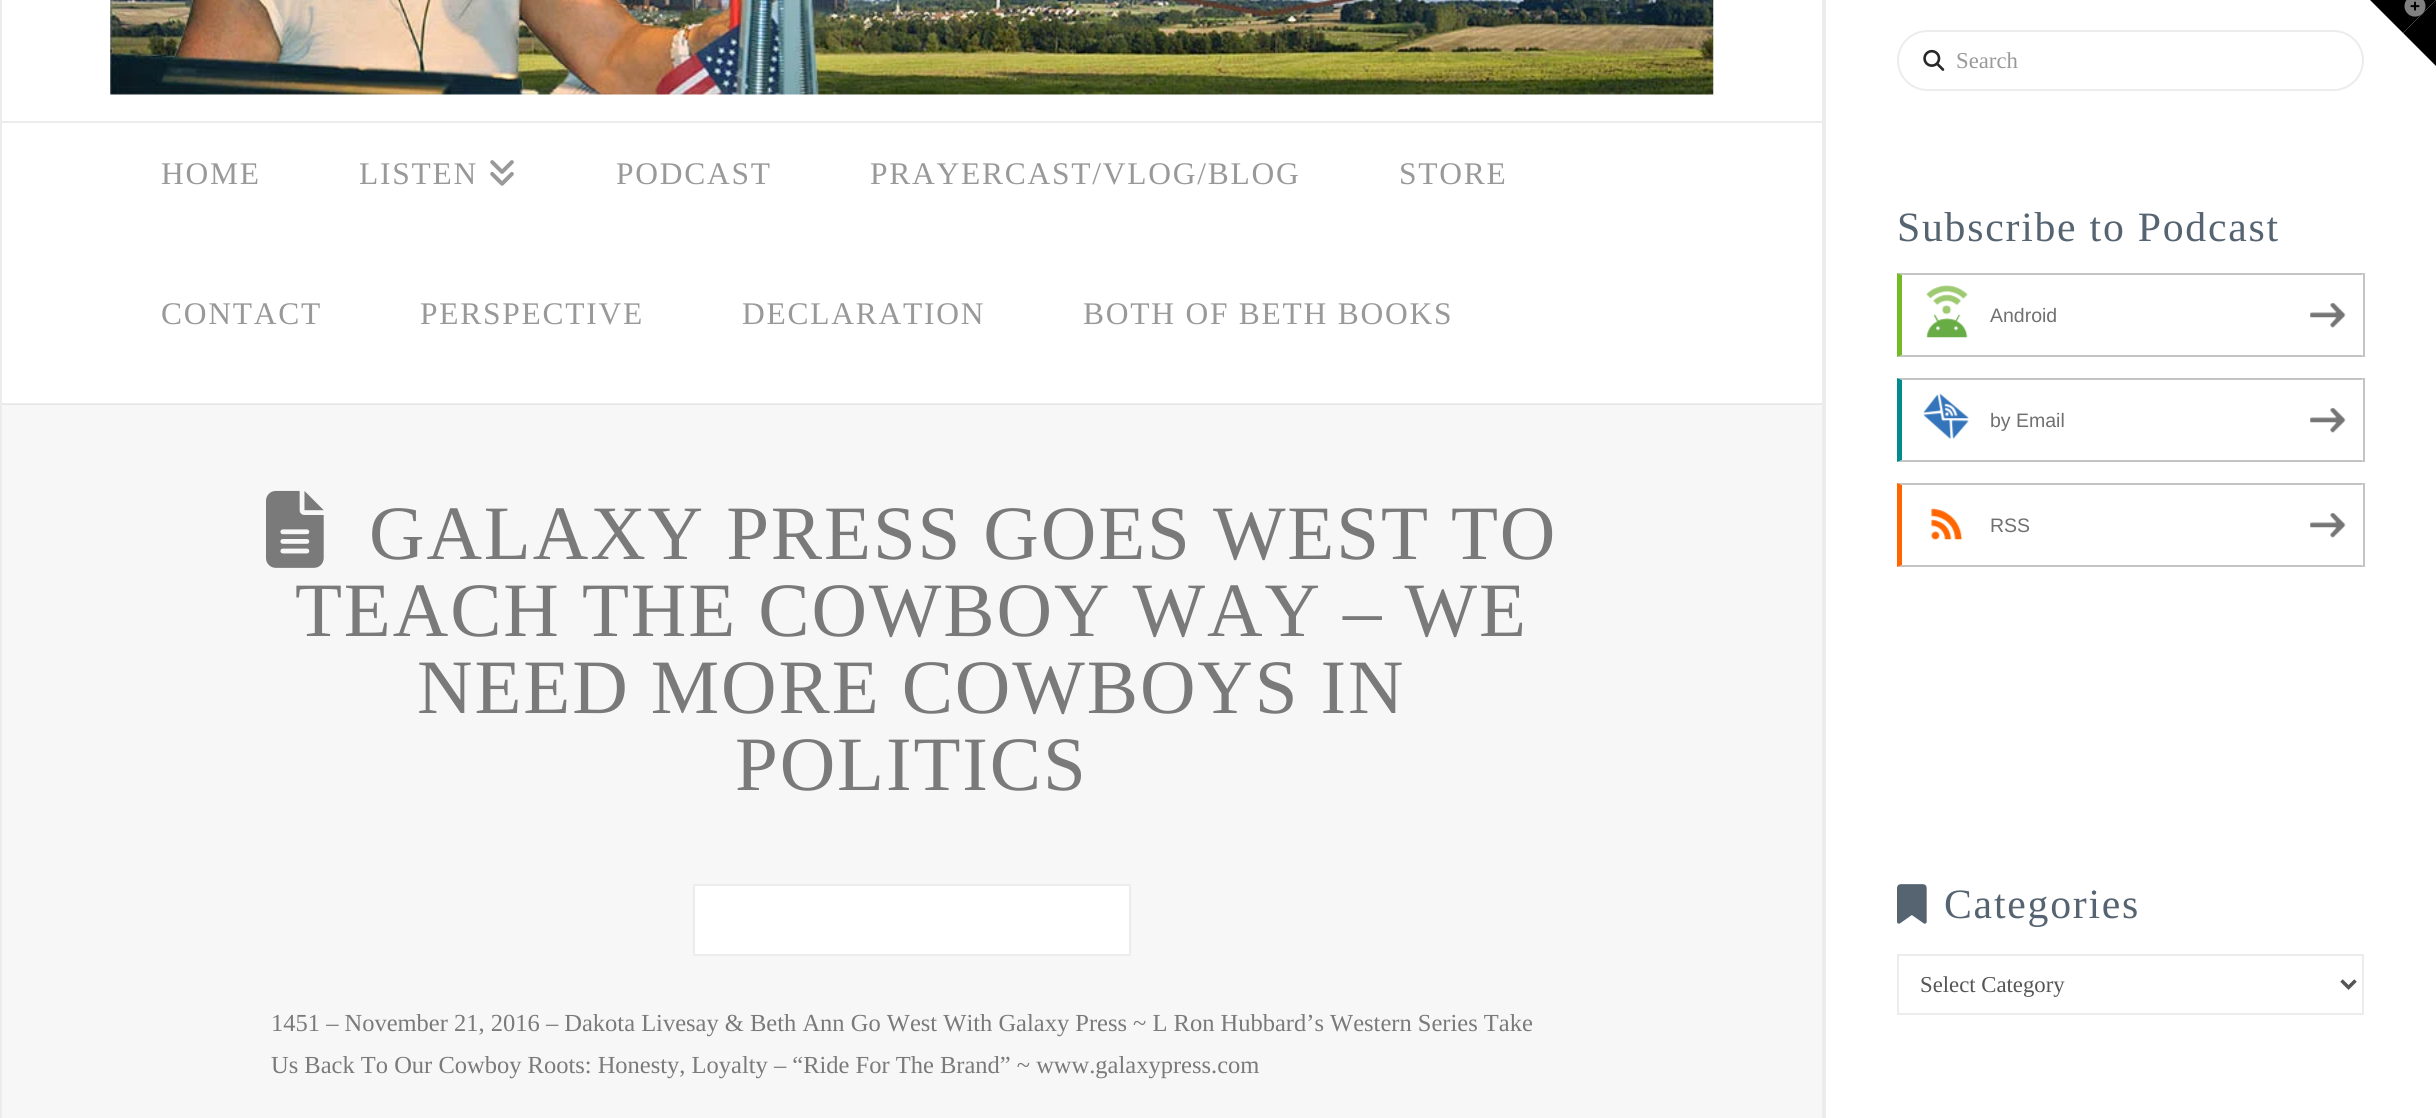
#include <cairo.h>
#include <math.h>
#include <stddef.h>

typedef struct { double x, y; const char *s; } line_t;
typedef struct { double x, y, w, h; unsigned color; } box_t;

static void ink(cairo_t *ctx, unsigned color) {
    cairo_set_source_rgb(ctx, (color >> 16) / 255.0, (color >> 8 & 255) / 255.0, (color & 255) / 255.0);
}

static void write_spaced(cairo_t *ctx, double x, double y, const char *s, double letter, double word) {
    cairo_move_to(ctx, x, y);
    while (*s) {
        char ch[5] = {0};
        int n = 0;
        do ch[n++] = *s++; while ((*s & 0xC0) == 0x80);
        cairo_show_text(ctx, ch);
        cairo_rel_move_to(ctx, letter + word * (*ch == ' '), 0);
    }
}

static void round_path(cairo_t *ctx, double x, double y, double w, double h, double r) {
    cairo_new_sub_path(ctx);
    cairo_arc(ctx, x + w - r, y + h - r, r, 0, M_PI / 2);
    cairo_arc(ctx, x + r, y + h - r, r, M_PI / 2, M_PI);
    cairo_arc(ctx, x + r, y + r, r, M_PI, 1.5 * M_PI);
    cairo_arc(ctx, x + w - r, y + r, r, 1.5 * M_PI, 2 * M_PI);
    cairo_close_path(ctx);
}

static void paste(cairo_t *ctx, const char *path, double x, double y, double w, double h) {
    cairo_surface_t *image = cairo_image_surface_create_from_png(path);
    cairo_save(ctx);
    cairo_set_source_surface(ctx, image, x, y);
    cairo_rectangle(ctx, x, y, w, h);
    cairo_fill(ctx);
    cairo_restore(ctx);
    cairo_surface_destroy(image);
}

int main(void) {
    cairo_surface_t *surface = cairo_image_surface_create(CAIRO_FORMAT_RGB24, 2436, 1118);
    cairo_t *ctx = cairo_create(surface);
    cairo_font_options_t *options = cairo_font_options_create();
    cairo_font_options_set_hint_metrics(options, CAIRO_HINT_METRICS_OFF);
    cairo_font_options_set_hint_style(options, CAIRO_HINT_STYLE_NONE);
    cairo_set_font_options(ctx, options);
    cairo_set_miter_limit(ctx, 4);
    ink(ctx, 0xFFFFFF);
    cairo_paint(ctx);
    ink(ctx, 0x000000);
    cairo_new_path(ctx);
    cairo_move_to(ctx, 2370, 0);
    cairo_line_to(ctx, 2436, 0);
    cairo_line_to(ctx, 2403, 33);
    cairo_close_path(ctx);
    cairo_fill(ctx);
    cairo_new_path(ctx);
    cairo_move_to(ctx, 2436, 0);
    cairo_line_to(ctx, 2436, 66);
    cairo_line_to(ctx, 2403, 33);
    cairo_close_path(ctx);
    cairo_fill(ctx);
    paste(ctx, "media/1.png", 2404, 0, 22, 17);
    {
        static const box_t items[] = {
            {2, 403, 1820, 1, 0xEDEDED},
            {1822, 0, 4, 1118, 0xECECEC},
            {0, 0, 2, 1118, 0xECECEC},
            {2, 121, 1820, 2, 0xECECEC},
        };
        for (size_t i = 0; i < sizeof items / sizeof *items; i++) {
            ink(ctx, items[i].color);
            cairo_rectangle(ctx, items[i].x, items[i].y, items[i].w, items[i].h);
            cairo_fill(ctx);
        }
    }
    paste(ctx, "media/2.png", 110, 0, 1604, 95);
    cairo_select_font_face(ctx, "Liberation Serif", CAIRO_FONT_SLANT_NORMAL, CAIRO_FONT_WEIGHT_NORMAL);
    cairo_set_font_size(ctx, 31.5);
    ink(ctx, 0x999999);
    write_spaced(ctx, 161, 184, "HOME", 1.75, 0);
    write_spaced(ctx, 359, 184, "LISTEN", 1.75, 0);
    paste(ctx, "media/3.png", 490, 160, 24, 26);
    {
        static const line_t items[] = {
            {616, 184, "PODCAST"},
            {870, 184, "PRAYERCAST/VLOG/BLOG"},
            {1399, 184, "STORE"},
            {161, 324, "CONTACT"},
            {420, 324, "PERSPECTIVE"},
            {742, 324, "DECLARATION"},
            {1083, 324, "BOTH OF BETH BOOKS"},
        };
        for (size_t i = 0; i < sizeof items / sizeof *items; i++) {
            write_spaced(ctx, items[i].x, items[i].y, items[i].s, 1.75, 0);
        }
    }
    round_path(ctx, 1898, 31, 465, 59, 29.5);
    ink(ctx, 0xECECEC);
    cairo_stroke(ctx);
    paste(ctx, "media/4.png", 1923, 49, 22, 22);
    cairo_set_font_size(ctx, 22.75);
    ink(ctx, 0x999999);
    cairo_move_to(ctx, 1956, 68);
    cairo_show_text(ctx, "Search");
    cairo_set_font_size(ctx, 41.75);
    ink(ctx, 0x566471);
    write_spaced(ctx, 1897, 241, "Subscribe to Podcast", 1.75, 0);
    ink(ctx, 0xC4C4C4);
    cairo_new_path(ctx);
    cairo_move_to(ctx, 1897, 273);
    cairo_line_to(ctx, 2364, 273);
    cairo_line_to(ctx, 2362, 275);
    cairo_line_to(ctx, 1902, 275);
    cairo_close_path(ctx);
    cairo_fill(ctx);
    cairo_rectangle(ctx, 2363, 273, 2, 84);
    cairo_fill(ctx);
    cairo_new_path(ctx);
    cairo_move_to(ctx, 2364, 357);
    cairo_line_to(ctx, 1897, 357);
    cairo_line_to(ctx, 1902, 355);
    cairo_line_to(ctx, 2362, 355);
    cairo_close_path(ctx);
    cairo_fill(ctx);
    ink(ctx, 0x75BA26);
    cairo_new_path(ctx);
    cairo_move_to(ctx, 1897, 357);
    cairo_line_to(ctx, 1897, 273);
    cairo_line_to(ctx, 1902, 275);
    cairo_line_to(ctx, 1902, 355);
    cairo_close_path(ctx);
    cairo_fill(ctx);
    paste(ctx, "media/5.png", 1926, 285, 42, 53);
    cairo_select_font_face(ctx, "Liberation Sans", CAIRO_FONT_SLANT_NORMAL, CAIRO_FONT_WEIGHT_NORMAL);
    cairo_set_font_size(ctx, 19.5);
    ink(ctx, 0x707070);
    cairo_move_to(ctx, 1990, 322);
    cairo_show_text(ctx, "Android");
    paste(ctx, "media/6.png", 2310, 303, 36, 25);
    ink(ctx, 0xC4C4C4);
    cairo_new_path(ctx);
    cairo_move_to(ctx, 1897, 378);
    cairo_line_to(ctx, 2364, 378);
    cairo_line_to(ctx, 2362, 380);
    cairo_line_to(ctx, 1902, 380);
    cairo_close_path(ctx);
    cairo_fill(ctx);
    cairo_rectangle(ctx, 2363, 378, 2, 84);
    cairo_fill(ctx);
    cairo_new_path(ctx);
    cairo_move_to(ctx, 2364, 462);
    cairo_line_to(ctx, 1897, 462);
    cairo_line_to(ctx, 1902, 460);
    cairo_line_to(ctx, 2362, 460);
    cairo_close_path(ctx);
    cairo_fill(ctx);
    ink(ctx, 0x018C8B);
    cairo_new_path(ctx);
    cairo_move_to(ctx, 1897, 462);
    cairo_line_to(ctx, 1897, 378);
    cairo_line_to(ctx, 1902, 380);
    cairo_line_to(ctx, 1902, 460);
    cairo_close_path(ctx);
    cairo_fill(ctx);
    paste(ctx, "media/7.png", 1923, 393, 46, 46);
    ink(ctx, 0x707070);
    cairo_move_to(ctx, 1990, 427);
    cairo_show_text(ctx, "by Email");
    paste(ctx, "media/6.png", 2310, 408, 36, 25);
    ink(ctx, 0xC4C4C4);
    cairo_new_path(ctx);
    cairo_move_to(ctx, 1897, 483);
    cairo_line_to(ctx, 2364, 483);
    cairo_line_to(ctx, 2362, 485);
    cairo_line_to(ctx, 1902, 485);
    cairo_close_path(ctx);
    cairo_fill(ctx);
    cairo_rectangle(ctx, 2363, 483, 2, 84);
    cairo_fill(ctx);
    cairo_new_path(ctx);
    cairo_move_to(ctx, 2364, 567);
    cairo_line_to(ctx, 1897, 567);
    cairo_line_to(ctx, 1902, 565);
    cairo_line_to(ctx, 2362, 565);
    cairo_close_path(ctx);
    cairo_fill(ctx);
    ink(ctx, 0xFF6600);
    cairo_new_path(ctx);
    cairo_move_to(ctx, 1897, 567);
    cairo_line_to(ctx, 1897, 483);
    cairo_line_to(ctx, 1902, 485);
    cairo_line_to(ctx, 1902, 565);
    cairo_close_path(ctx);
    cairo_fill(ctx);
    paste(ctx, "media/8.png", 1931, 508, 32, 32);
    ink(ctx, 0x707070);
    cairo_move_to(ctx, 1990, 532);
    cairo_show_text(ctx, "RSS");
    paste(ctx, "media/6.png", 2310, 513, 36, 25);
    paste(ctx, "media/9.png", 1897, 884, 30, 40);
    cairo_select_font_face(ctx, "Liberation Serif", CAIRO_FONT_SLANT_NORMAL, CAIRO_FONT_WEIGHT_NORMAL);
    cairo_set_font_size(ctx, 41.75);
    ink(ctx, 0x566471);
    write_spaced(ctx, 1944, 918, "Categories", 1.75, 0);
    cairo_rectangle(ctx, 1898, 955, 465, 59);
    ink(ctx, 0xECECEC);
    cairo_stroke(ctx);
    cairo_new_path(ctx);
    cairo_move_to(ctx, 2341.5, 980.5);
    cairo_line_to(ctx, 2348.5, 987.5);
    cairo_line_to(ctx, 2355.5, 980.5);
    ink(ctx, 0x555555);
    cairo_set_line_width(ctx, 3.5);
    cairo_stroke(ctx);
    cairo_set_font_size(ctx, 22.75);
    cairo_move_to(ctx, 1920, 992);
    cairo_show_text(ctx, "Select Category");
    ink(ctx, 0xF7F7F7);
    cairo_rectangle(ctx, 2, 405, 1820, 713);
    cairo_fill(ctx);
    ink(ctx, 0xE6E6E6);
    cairo_rectangle(ctx, 2, 404, 1820, 1);
    cairo_fill(ctx);
    paste(ctx, "media/10.png", 266, 490, 58, 78);
    cairo_set_font_size(ctx, 76.9);
    ink(ctx, 0x7A7A7A);
    {
        static const line_t items[] = {
            {369, 559, "GALAXY PRESS GOES WEST TO"},
            {295, 636, "TEACH THE COWBOY WAY – WE"},
            {417, 713, "NEED MORE COWBOYS IN"},
            {735, 790, "POLITICS"},
        };
        for (size_t i = 0; i < sizeof items / sizeof *items; i++) {
            write_spaced(ctx, items[i].x, items[i].y, items[i].s, 1.9, 0);
        }
    }
    ink(ctx, 0xFFFFFF);
    cairo_rectangle(ctx, 694, 885, 436, 70);
    cairo_fill_preserve(ctx);
    ink(ctx, 0xECECEC);
    cairo_set_line_width(ctx, 2);
    cairo_stroke(ctx);
    cairo_set_font_size(ctx, 24.5);
    ink(ctx, 0x7A7A7A);
    cairo_move_to(ctx, 271, 1031);
    cairo_show_text(ctx, "1451 – November 21, 2016 – Dakota Livesay & Beth Ann Go West With Galaxy Press ~ L Ron Hubbard’s Western Series Take");
    cairo_move_to(ctx, 271, 1073);
    cairo_show_text(ctx, "Us Back To Our Cowboy Roots: Honesty, Loyalty – “Ride For The Brand” ~ www.galaxypress.com");
    cairo_surface_write_to_png(surface, "image.png");
    cairo_font_options_destroy(options);
    cairo_destroy(ctx);
    cairo_surface_destroy(surface);
    return 0;
}
